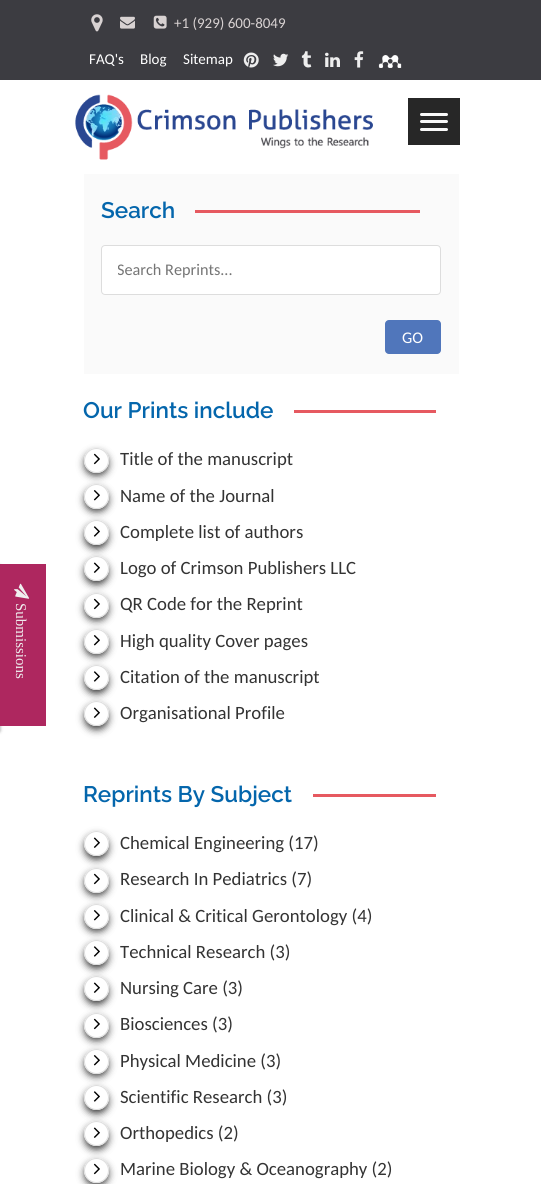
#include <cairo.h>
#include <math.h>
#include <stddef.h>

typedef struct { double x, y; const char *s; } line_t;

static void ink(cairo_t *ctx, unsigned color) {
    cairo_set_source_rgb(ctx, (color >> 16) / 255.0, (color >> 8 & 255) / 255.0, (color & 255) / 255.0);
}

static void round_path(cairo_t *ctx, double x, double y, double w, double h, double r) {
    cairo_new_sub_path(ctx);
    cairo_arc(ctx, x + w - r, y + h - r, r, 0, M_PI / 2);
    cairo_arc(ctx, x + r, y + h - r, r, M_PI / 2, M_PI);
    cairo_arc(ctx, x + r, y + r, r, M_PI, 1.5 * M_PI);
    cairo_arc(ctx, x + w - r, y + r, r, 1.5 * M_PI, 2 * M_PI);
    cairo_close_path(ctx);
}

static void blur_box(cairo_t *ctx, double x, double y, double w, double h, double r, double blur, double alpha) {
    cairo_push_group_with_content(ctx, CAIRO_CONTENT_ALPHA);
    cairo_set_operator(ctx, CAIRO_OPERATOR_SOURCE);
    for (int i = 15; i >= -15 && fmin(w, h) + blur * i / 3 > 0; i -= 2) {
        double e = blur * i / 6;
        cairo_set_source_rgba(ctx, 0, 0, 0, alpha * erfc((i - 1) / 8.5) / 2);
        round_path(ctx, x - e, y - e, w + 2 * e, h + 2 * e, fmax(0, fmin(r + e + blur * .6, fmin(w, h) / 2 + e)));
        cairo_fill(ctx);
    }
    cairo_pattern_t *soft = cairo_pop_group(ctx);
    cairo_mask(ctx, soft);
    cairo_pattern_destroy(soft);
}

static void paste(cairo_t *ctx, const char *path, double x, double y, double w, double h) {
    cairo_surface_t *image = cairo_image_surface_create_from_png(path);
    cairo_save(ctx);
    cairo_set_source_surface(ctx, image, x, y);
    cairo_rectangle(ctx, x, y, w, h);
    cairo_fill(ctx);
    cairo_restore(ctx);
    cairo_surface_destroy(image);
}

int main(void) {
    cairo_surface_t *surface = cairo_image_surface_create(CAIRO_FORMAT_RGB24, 541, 1184);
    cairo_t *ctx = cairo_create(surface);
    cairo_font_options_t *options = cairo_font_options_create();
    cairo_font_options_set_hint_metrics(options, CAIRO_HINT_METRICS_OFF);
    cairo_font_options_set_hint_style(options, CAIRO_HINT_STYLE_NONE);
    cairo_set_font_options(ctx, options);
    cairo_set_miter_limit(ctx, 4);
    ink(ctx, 0xFFFFFF);
    cairo_paint(ctx);
    ink(ctx, 0x3C3C41);
    cairo_rectangle(ctx, 0, 0, 541, 80);
    cairo_fill(ctx);
    paste(ctx, "media/1.png", 91, 14, 12, 18);
    paste(ctx, "media/2.png", 120, 16, 15, 13);
    paste(ctx, "media/3.png", 153, 15, 14, 14);
    cairo_select_font_face(ctx, "Carlito", CAIRO_FONT_SLANT_NORMAL, CAIRO_FONT_WEIGHT_NORMAL);
    cairo_set_font_size(ctx, 15);
    ink(ctx, 0xD8D2D2);
    cairo_move_to(ctx, 174, 28);
    cairo_show_text(ctx, "+1 (929) 600-8049");
    ink(ctx, 0xFFFFFF);
    {
        static const line_t items[] = {
            {89, 64, "FAQ's"},
            {140, 64, "Blog"},
            {183, 64, "Sitemap"},
        };
        for (size_t i = 0; i < sizeof items / sizeof *items; i++) {
            cairo_move_to(ctx, items[i].x, items[i].y);
            cairo_show_text(ctx, items[i].s);
        }
    }
    paste(ctx, "media/4.png", 243, 52, 16, 16);
    paste(ctx, "media/5.png", 273, 53, 16, 14);
    paste(ctx, "media/6.png", 301, 51, 11, 17);
    paste(ctx, "media/7.png", 325, 52, 15, 15);
    paste(ctx, "media/8.png", 354, 51, 10, 17);
    paste(ctx, "media/9.png", 378, 55, 24, 13);
    paste(ctx, "media/10.png", 75, 94, 298, 66);
    ink(ctx, 0x272727);
    cairo_rectangle(ctx, 408, 98, 52, 47);
    cairo_fill(ctx);
    ink(ctx, 0xF9F9F9);
    round_path(ctx, 420, 113, 28, 3, 1.5);
    cairo_fill(ctx);
    round_path(ctx, 420, 120, 28, 3, 1.5);
    cairo_fill(ctx);
    round_path(ctx, 420, 128, 28, 3, 1.5);
    cairo_fill(ctx);
    ink(ctx, 0x000000);
    blur_box(ctx, -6, 566, 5, 165, 0, 2, 0.7);
    ink(ctx, 0xAE275F);
    cairo_rectangle(ctx, 0, 564, 46, 162);
    cairo_fill(ctx);
    paste(ctx, "media/11.png", 14, 583, 16, 16);
    cairo_select_font_face(ctx, "Liberation Serif", CAIRO_FONT_SLANT_NORMAL, CAIRO_FONT_WEIGHT_NORMAL);
    ink(ctx, 0xEFEFEF);
    cairo_save(ctx);
    cairo_translate(ctx, 16, 603);
    cairo_rotate(ctx, 90 * M_PI / 180);
    cairo_move_to(ctx, 0, 0);
    cairo_show_text(ctx, "Submissions");
    cairo_restore(ctx);
    ink(ctx, 0xFAFAFA);
    cairo_rectangle(ctx, 84, 174, 375, 200);
    cairo_fill(ctx);
    cairo_select_font_face(ctx, "Raleway SemiBold", CAIRO_FONT_SLANT_NORMAL, CAIRO_FONT_WEIGHT_NORMAL);
    cairo_set_font_size(ctx, 22.5);
    ink(ctx, 0x0466AC);
    cairo_move_to(ctx, 101, 218);
    cairo_show_text(ctx, "Search");
    ink(ctx, 0xE65960);
    cairo_rectangle(ctx, 195, 210, 225, 3);
    cairo_fill(ctx);
    ink(ctx, 0xFFFFFF);
    round_path(ctx, 101.5, 245.5, 339, 49, 3.5);
    cairo_fill_preserve(ctx);
    ink(ctx, 0xDDDDDD);
    cairo_set_line_width(ctx, 1);
    cairo_stroke(ctx);
    cairo_save(ctx);
    cairo_rectangle(ctx, 118, 260, 322, 19);
    cairo_clip(ctx);
    cairo_select_font_face(ctx, "Carlito", CAIRO_FONT_SLANT_NORMAL, CAIRO_FONT_WEIGHT_NORMAL);
    cairo_set_font_size(ctx, 16.25);
    ink(ctx, 0x757575);
    cairo_move_to(ctx, 117, 275);
    cairo_show_text(ctx, "Search Reprints...");
    cairo_restore(ctx);
    ink(ctx, 0x5076BB);
    round_path(ctx, 385, 320, 56, 34, 4);
    cairo_fill(ctx);
    cairo_select_font_face(ctx, "Carlito", CAIRO_FONT_SLANT_NORMAL, CAIRO_FONT_WEIGHT_NORMAL);
    cairo_set_font_size(ctx, 16.25);
    ink(ctx, 0xFFFFFF);
    cairo_move_to(ctx, 402, 343);
    cairo_show_text(ctx, "GO");
    cairo_select_font_face(ctx, "Raleway SemiBold", CAIRO_FONT_SLANT_NORMAL, CAIRO_FONT_WEIGHT_NORMAL);
    cairo_set_font_size(ctx, 22.5);
    ink(ctx, 0x0466AC);
    cairo_move_to(ctx, 83, 418);
    cairo_show_text(ctx, "Our Prints include");
    ink(ctx, 0xE65960);
    cairo_rectangle(ctx, 294, 410, 142, 3);
    cairo_fill(ctx);
    cairo_save(ctx);
    cairo_set_fill_rule(ctx, CAIRO_FILL_RULE_EVEN_ODD);
    cairo_new_path(ctx);
    cairo_move_to(ctx, 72, 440);
    cairo_line_to(ctx, 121, 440);
    cairo_line_to(ctx, 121, 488);
    cairo_line_to(ctx, 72, 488);
    cairo_close_path(ctx);
    cairo_move_to(ctx, 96.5, 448);
    cairo_curve_to(ctx, 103.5, 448, 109, 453.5, 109, 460.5);
    cairo_curve_to(ctx, 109, 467.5, 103.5, 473, 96.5, 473);
    cairo_curve_to(ctx, 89.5, 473, 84, 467.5, 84, 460.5);
    cairo_curve_to(ctx, 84, 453.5, 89.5, 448, 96.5, 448);
    cairo_close_path(ctx);
    cairo_clip(ctx);
    ink(ctx, 0x333333);
    blur_box(ctx, 85, 453, 23, 22, 11, 4, 1);
    cairo_restore(ctx);
    cairo_arc(ctx, 96.5, 460.5, 12, 0, 2 * M_PI);
    ink(ctx, 0xDDDDDD);
    cairo_stroke(ctx);
    paste(ctx, "media/12.png", 93, 453, 7, 12);
    cairo_select_font_face(ctx, "Carlito", CAIRO_FONT_SLANT_NORMAL, CAIRO_FONT_WEIGHT_NORMAL);
    cairo_set_font_size(ctx, 18.75);
    ink(ctx, 0x333333);
    cairo_move_to(ctx, 120, 465);
    cairo_show_text(ctx, "Title of the manuscript");
    cairo_save(ctx);
    cairo_set_fill_rule(ctx, CAIRO_FILL_RULE_EVEN_ODD);
    cairo_new_path(ctx);
    cairo_move_to(ctx, 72, 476);
    cairo_line_to(ctx, 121, 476);
    cairo_line_to(ctx, 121, 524);
    cairo_line_to(ctx, 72, 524);
    cairo_close_path(ctx);
    cairo_move_to(ctx, 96.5, 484);
    cairo_curve_to(ctx, 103.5, 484, 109, 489.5, 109, 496.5);
    cairo_curve_to(ctx, 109, 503.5, 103.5, 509, 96.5, 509);
    cairo_curve_to(ctx, 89.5, 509, 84, 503.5, 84, 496.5);
    cairo_curve_to(ctx, 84, 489.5, 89.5, 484, 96.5, 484);
    cairo_close_path(ctx);
    cairo_clip(ctx);
    ink(ctx, 0x333333);
    blur_box(ctx, 85, 489, 23, 22, 11, 4, 1);
    cairo_restore(ctx);
    cairo_arc(ctx, 96.5, 496.5, 12, 0, 2 * M_PI);
    ink(ctx, 0xDDDDDD);
    cairo_stroke(ctx);
    paste(ctx, "media/13.png", 93, 490, 7, 11);
    ink(ctx, 0x333333);
    cairo_move_to(ctx, 120, 502);
    cairo_show_text(ctx, "Name of the Journal");
    cairo_save(ctx);
    cairo_set_fill_rule(ctx, CAIRO_FILL_RULE_EVEN_ODD);
    cairo_new_path(ctx);
    cairo_move_to(ctx, 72, 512);
    cairo_line_to(ctx, 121, 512);
    cairo_line_to(ctx, 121, 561);
    cairo_line_to(ctx, 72, 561);
    cairo_close_path(ctx);
    cairo_move_to(ctx, 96.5, 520);
    cairo_curve_to(ctx, 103.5, 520, 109, 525.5, 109, 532.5);
    cairo_curve_to(ctx, 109, 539.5, 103.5, 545, 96.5, 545);
    cairo_curve_to(ctx, 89.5, 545, 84, 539.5, 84, 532.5);
    cairo_curve_to(ctx, 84, 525.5, 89.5, 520, 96.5, 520);
    cairo_close_path(ctx);
    cairo_clip(ctx);
    ink(ctx, 0x333333);
    blur_box(ctx, 85, 525, 23, 23, 11.5, 4, 1);
    cairo_restore(ctx);
    cairo_arc(ctx, 96.5, 532.5, 12, 0, 2 * M_PI);
    ink(ctx, 0xDDDDDD);
    cairo_stroke(ctx);
    paste(ctx, "media/14.png", 93, 526, 7, 11);
    ink(ctx, 0x333333);
    cairo_move_to(ctx, 120, 538);
    cairo_show_text(ctx, "Complete list of authors");
    cairo_save(ctx);
    cairo_set_fill_rule(ctx, CAIRO_FILL_RULE_EVEN_ODD);
    cairo_new_path(ctx);
    cairo_move_to(ctx, 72, 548);
    cairo_line_to(ctx, 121, 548);
    cairo_line_to(ctx, 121, 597);
    cairo_line_to(ctx, 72, 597);
    cairo_close_path(ctx);
    cairo_move_to(ctx, 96.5, 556);
    cairo_curve_to(ctx, 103.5, 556, 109, 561.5, 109, 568.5);
    cairo_curve_to(ctx, 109, 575.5, 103.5, 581, 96.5, 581);
    cairo_curve_to(ctx, 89.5, 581, 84, 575.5, 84, 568.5);
    cairo_curve_to(ctx, 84, 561.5, 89.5, 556, 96.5, 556);
    cairo_close_path(ctx);
    cairo_clip(ctx);
    ink(ctx, 0x333333);
    blur_box(ctx, 85, 561, 23, 23, 11.5, 4, 1);
    cairo_restore(ctx);
    cairo_arc(ctx, 96.5, 568.5, 12, 0, 2 * M_PI);
    ink(ctx, 0xDDDDDD);
    cairo_stroke(ctx);
    paste(ctx, "media/15.png", 93, 562, 7, 11);
    ink(ctx, 0x333333);
    cairo_move_to(ctx, 120, 574);
    cairo_show_text(ctx, "Logo of Crimson Publishers LLC");
    cairo_save(ctx);
    cairo_set_fill_rule(ctx, CAIRO_FILL_RULE_EVEN_ODD);
    cairo_new_path(ctx);
    cairo_move_to(ctx, 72, 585);
    cairo_line_to(ctx, 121, 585);
    cairo_line_to(ctx, 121, 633);
    cairo_line_to(ctx, 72, 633);
    cairo_close_path(ctx);
    cairo_move_to(ctx, 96.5, 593);
    cairo_curve_to(ctx, 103.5, 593, 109, 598.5, 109, 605.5);
    cairo_curve_to(ctx, 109, 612.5, 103.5, 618, 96.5, 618);
    cairo_curve_to(ctx, 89.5, 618, 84, 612.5, 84, 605.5);
    cairo_curve_to(ctx, 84, 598.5, 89.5, 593, 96.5, 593);
    cairo_close_path(ctx);
    cairo_clip(ctx);
    ink(ctx, 0x333333);
    blur_box(ctx, 85, 598, 23, 22, 11, 4, 1);
    cairo_restore(ctx);
    cairo_arc(ctx, 96.5, 605.5, 12, 0, 2 * M_PI);
    ink(ctx, 0xDDDDDD);
    cairo_stroke(ctx);
    paste(ctx, "media/12.png", 93, 598, 7, 12);
    ink(ctx, 0x333333);
    cairo_move_to(ctx, 120, 610);
    cairo_show_text(ctx, "QR Code for the Reprint");
    cairo_save(ctx);
    cairo_set_fill_rule(ctx, CAIRO_FILL_RULE_EVEN_ODD);
    cairo_new_path(ctx);
    cairo_move_to(ctx, 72, 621);
    cairo_line_to(ctx, 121, 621);
    cairo_line_to(ctx, 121, 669);
    cairo_line_to(ctx, 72, 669);
    cairo_close_path(ctx);
    cairo_move_to(ctx, 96.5, 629);
    cairo_curve_to(ctx, 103.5, 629, 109, 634.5, 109, 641.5);
    cairo_curve_to(ctx, 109, 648.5, 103.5, 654, 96.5, 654);
    cairo_curve_to(ctx, 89.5, 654, 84, 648.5, 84, 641.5);
    cairo_curve_to(ctx, 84, 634.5, 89.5, 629, 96.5, 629);
    cairo_close_path(ctx);
    cairo_clip(ctx);
    ink(ctx, 0x333333);
    blur_box(ctx, 85, 634, 23, 22, 11, 4, 1);
    cairo_restore(ctx);
    cairo_arc(ctx, 96.5, 641.5, 12, 0, 2 * M_PI);
    ink(ctx, 0xDDDDDD);
    cairo_stroke(ctx);
    paste(ctx, "media/13.png", 93, 635, 7, 11);
    ink(ctx, 0x333333);
    cairo_move_to(ctx, 120, 647);
    cairo_show_text(ctx, "High quality Cover pages");
    cairo_save(ctx);
    cairo_set_fill_rule(ctx, CAIRO_FILL_RULE_EVEN_ODD);
    cairo_new_path(ctx);
    cairo_move_to(ctx, 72, 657);
    cairo_line_to(ctx, 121, 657);
    cairo_line_to(ctx, 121, 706);
    cairo_line_to(ctx, 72, 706);
    cairo_close_path(ctx);
    cairo_move_to(ctx, 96.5, 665);
    cairo_curve_to(ctx, 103.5, 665, 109, 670.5, 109, 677.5);
    cairo_curve_to(ctx, 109, 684.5, 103.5, 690, 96.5, 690);
    cairo_curve_to(ctx, 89.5, 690, 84, 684.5, 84, 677.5);
    cairo_curve_to(ctx, 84, 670.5, 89.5, 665, 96.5, 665);
    cairo_close_path(ctx);
    cairo_clip(ctx);
    ink(ctx, 0x333333);
    blur_box(ctx, 85, 670, 23, 23, 11.5, 4, 1);
    cairo_restore(ctx);
    cairo_arc(ctx, 96.5, 677.5, 12, 0, 2 * M_PI);
    ink(ctx, 0xDDDDDD);
    cairo_stroke(ctx);
    paste(ctx, "media/14.png", 93, 671, 7, 11);
    ink(ctx, 0x333333);
    cairo_move_to(ctx, 120, 683);
    cairo_show_text(ctx, "Citation of the manuscript");
    cairo_save(ctx);
    cairo_set_fill_rule(ctx, CAIRO_FILL_RULE_EVEN_ODD);
    cairo_new_path(ctx);
    cairo_move_to(ctx, 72, 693);
    cairo_line_to(ctx, 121, 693);
    cairo_line_to(ctx, 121, 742);
    cairo_line_to(ctx, 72, 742);
    cairo_close_path(ctx);
    cairo_move_to(ctx, 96.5, 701);
    cairo_curve_to(ctx, 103.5, 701, 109, 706.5, 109, 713.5);
    cairo_curve_to(ctx, 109, 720.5, 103.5, 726, 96.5, 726);
    cairo_curve_to(ctx, 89.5, 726, 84, 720.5, 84, 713.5);
    cairo_curve_to(ctx, 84, 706.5, 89.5, 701, 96.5, 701);
    cairo_close_path(ctx);
    cairo_clip(ctx);
    ink(ctx, 0x333333);
    blur_box(ctx, 85, 706, 23, 23, 11.5, 4, 1);
    cairo_restore(ctx);
    cairo_arc(ctx, 96.5, 713.5, 12, 0, 2 * M_PI);
    ink(ctx, 0xDDDDDD);
    cairo_stroke(ctx);
    paste(ctx, "media/15.png", 93, 707, 7, 11);
    ink(ctx, 0x333333);
    cairo_move_to(ctx, 120, 719);
    cairo_show_text(ctx, "Organisational Profile");
    cairo_select_font_face(ctx, "Raleway SemiBold", CAIRO_FONT_SLANT_NORMAL, CAIRO_FONT_WEIGHT_NORMAL);
    cairo_set_font_size(ctx, 22.5);
    ink(ctx, 0x0466AC);
    cairo_move_to(ctx, 83, 802);
    cairo_show_text(ctx, "Reprints By Subject");
    ink(ctx, 0xE65960);
    cairo_rectangle(ctx, 313, 794, 123, 3);
    cairo_fill(ctx);
    cairo_save(ctx);
    cairo_set_fill_rule(ctx, CAIRO_FILL_RULE_EVEN_ODD);
    cairo_new_path(ctx);
    cairo_move_to(ctx, 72, 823);
    cairo_line_to(ctx, 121, 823);
    cairo_line_to(ctx, 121, 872);
    cairo_line_to(ctx, 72, 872);
    cairo_close_path(ctx);
    cairo_move_to(ctx, 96.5, 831);
    cairo_curve_to(ctx, 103.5, 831, 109, 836.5, 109, 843.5);
    cairo_curve_to(ctx, 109, 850.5, 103.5, 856, 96.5, 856);
    cairo_curve_to(ctx, 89.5, 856, 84, 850.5, 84, 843.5);
    cairo_curve_to(ctx, 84, 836.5, 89.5, 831, 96.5, 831);
    cairo_close_path(ctx);
    cairo_clip(ctx);
    ink(ctx, 0x333333);
    blur_box(ctx, 85, 836, 23, 23, 11.5, 4, 1);
    cairo_restore(ctx);
    cairo_arc(ctx, 96.5, 843.5, 12, 0, 2 * M_PI);
    ink(ctx, 0xDDDDDD);
    cairo_stroke(ctx);
    paste(ctx, "media/15.png", 93, 837, 7, 11);
    cairo_select_font_face(ctx, "Carlito", CAIRO_FONT_SLANT_NORMAL, CAIRO_FONT_WEIGHT_NORMAL);
    cairo_set_font_size(ctx, 18.75);
    ink(ctx, 0x333333);
    cairo_move_to(ctx, 120, 849);
    cairo_show_text(ctx, "Chemical Engineering (17)");
    cairo_save(ctx);
    cairo_set_fill_rule(ctx, CAIRO_FILL_RULE_EVEN_ODD);
    cairo_new_path(ctx);
    cairo_move_to(ctx, 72, 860);
    cairo_line_to(ctx, 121, 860);
    cairo_line_to(ctx, 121, 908);
    cairo_line_to(ctx, 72, 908);
    cairo_close_path(ctx);
    cairo_move_to(ctx, 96.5, 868);
    cairo_curve_to(ctx, 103.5, 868, 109, 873.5, 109, 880.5);
    cairo_curve_to(ctx, 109, 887.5, 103.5, 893, 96.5, 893);
    cairo_curve_to(ctx, 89.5, 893, 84, 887.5, 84, 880.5);
    cairo_curve_to(ctx, 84, 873.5, 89.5, 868, 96.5, 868);
    cairo_close_path(ctx);
    cairo_clip(ctx);
    ink(ctx, 0x333333);
    blur_box(ctx, 85, 873, 23, 22, 11, 4, 1);
    cairo_restore(ctx);
    cairo_arc(ctx, 96.5, 880.5, 12, 0, 2 * M_PI);
    ink(ctx, 0xDDDDDD);
    cairo_stroke(ctx);
    paste(ctx, "media/12.png", 93, 873, 7, 12);
    ink(ctx, 0x333333);
    cairo_move_to(ctx, 120, 885);
    cairo_show_text(ctx, "Research In Pediatrics (7)");
    cairo_save(ctx);
    cairo_set_fill_rule(ctx, CAIRO_FILL_RULE_EVEN_ODD);
    cairo_new_path(ctx);
    cairo_move_to(ctx, 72, 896);
    cairo_line_to(ctx, 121, 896);
    cairo_line_to(ctx, 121, 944);
    cairo_line_to(ctx, 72, 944);
    cairo_close_path(ctx);
    cairo_move_to(ctx, 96.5, 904);
    cairo_curve_to(ctx, 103.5, 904, 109, 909.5, 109, 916.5);
    cairo_curve_to(ctx, 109, 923.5, 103.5, 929, 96.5, 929);
    cairo_curve_to(ctx, 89.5, 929, 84, 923.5, 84, 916.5);
    cairo_curve_to(ctx, 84, 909.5, 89.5, 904, 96.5, 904);
    cairo_close_path(ctx);
    cairo_clip(ctx);
    ink(ctx, 0x333333);
    blur_box(ctx, 85, 909, 23, 22, 11, 4, 1);
    cairo_restore(ctx);
    cairo_arc(ctx, 96.5, 916.5, 12, 0, 2 * M_PI);
    ink(ctx, 0xDDDDDD);
    cairo_stroke(ctx);
    paste(ctx, "media/13.png", 93, 910, 7, 11);
    ink(ctx, 0x333333);
    cairo_move_to(ctx, 120, 922);
    cairo_show_text(ctx, "Clinical & Critical Gerontology (4)");
    cairo_save(ctx);
    cairo_set_fill_rule(ctx, CAIRO_FILL_RULE_EVEN_ODD);
    cairo_new_path(ctx);
    cairo_move_to(ctx, 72, 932);
    cairo_line_to(ctx, 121, 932);
    cairo_line_to(ctx, 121, 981);
    cairo_line_to(ctx, 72, 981);
    cairo_close_path(ctx);
    cairo_move_to(ctx, 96.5, 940);
    cairo_curve_to(ctx, 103.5, 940, 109, 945.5, 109, 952.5);
    cairo_curve_to(ctx, 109, 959.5, 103.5, 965, 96.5, 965);
    cairo_curve_to(ctx, 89.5, 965, 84, 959.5, 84, 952.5);
    cairo_curve_to(ctx, 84, 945.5, 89.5, 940, 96.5, 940);
    cairo_close_path(ctx);
    cairo_clip(ctx);
    ink(ctx, 0x333333);
    blur_box(ctx, 85, 945, 23, 23, 11.5, 4, 1);
    cairo_restore(ctx);
    cairo_arc(ctx, 96.5, 952.5, 12, 0, 2 * M_PI);
    ink(ctx, 0xDDDDDD);
    cairo_stroke(ctx);
    paste(ctx, "media/14.png", 93, 946, 7, 11);
    ink(ctx, 0x333333);
    cairo_move_to(ctx, 120, 958);
    cairo_show_text(ctx, "Technical Research (3)");
    cairo_save(ctx);
    cairo_set_fill_rule(ctx, CAIRO_FILL_RULE_EVEN_ODD);
    cairo_new_path(ctx);
    cairo_move_to(ctx, 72, 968);
    cairo_line_to(ctx, 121, 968);
    cairo_line_to(ctx, 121, 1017);
    cairo_line_to(ctx, 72, 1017);
    cairo_close_path(ctx);
    cairo_move_to(ctx, 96.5, 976);
    cairo_curve_to(ctx, 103.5, 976, 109, 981.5, 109, 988.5);
    cairo_curve_to(ctx, 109, 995.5, 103.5, 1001, 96.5, 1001);
    cairo_curve_to(ctx, 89.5, 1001, 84, 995.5, 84, 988.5);
    cairo_curve_to(ctx, 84, 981.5, 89.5, 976, 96.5, 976);
    cairo_close_path(ctx);
    cairo_clip(ctx);
    ink(ctx, 0x333333);
    blur_box(ctx, 85, 981, 23, 23, 11.5, 4, 1);
    cairo_restore(ctx);
    cairo_arc(ctx, 96.5, 988.5, 12, 0, 2 * M_PI);
    ink(ctx, 0xDDDDDD);
    cairo_stroke(ctx);
    paste(ctx, "media/15.png", 93, 982, 7, 11);
    ink(ctx, 0x333333);
    cairo_move_to(ctx, 120, 994);
    cairo_show_text(ctx, "Nursing Care (3)");
    cairo_save(ctx);
    cairo_set_fill_rule(ctx, CAIRO_FILL_RULE_EVEN_ODD);
    cairo_new_path(ctx);
    cairo_move_to(ctx, 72, 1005);
    cairo_line_to(ctx, 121, 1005);
    cairo_line_to(ctx, 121, 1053);
    cairo_line_to(ctx, 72, 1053);
    cairo_close_path(ctx);
    cairo_move_to(ctx, 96.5, 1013);
    cairo_curve_to(ctx, 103.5, 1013, 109, 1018.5, 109, 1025.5);
    cairo_curve_to(ctx, 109, 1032.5, 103.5, 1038, 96.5, 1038);
    cairo_curve_to(ctx, 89.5, 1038, 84, 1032.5, 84, 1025.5);
    cairo_curve_to(ctx, 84, 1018.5, 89.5, 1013, 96.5, 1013);
    cairo_close_path(ctx);
    cairo_clip(ctx);
    ink(ctx, 0x333333);
    blur_box(ctx, 85, 1018, 23, 22, 11, 4, 1);
    cairo_restore(ctx);
    cairo_arc(ctx, 96.5, 1025.5, 12, 0, 2 * M_PI);
    ink(ctx, 0xDDDDDD);
    cairo_stroke(ctx);
    paste(ctx, "media/12.png", 93, 1018, 7, 12);
    ink(ctx, 0x333333);
    cairo_move_to(ctx, 120, 1030);
    cairo_show_text(ctx, "Biosciences (3)");
    cairo_save(ctx);
    cairo_set_fill_rule(ctx, CAIRO_FILL_RULE_EVEN_ODD);
    cairo_new_path(ctx);
    cairo_move_to(ctx, 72, 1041);
    cairo_line_to(ctx, 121, 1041);
    cairo_line_to(ctx, 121, 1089);
    cairo_line_to(ctx, 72, 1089);
    cairo_close_path(ctx);
    cairo_move_to(ctx, 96.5, 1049);
    cairo_curve_to(ctx, 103.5, 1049, 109, 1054.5, 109, 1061.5);
    cairo_curve_to(ctx, 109, 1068.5, 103.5, 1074, 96.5, 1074);
    cairo_curve_to(ctx, 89.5, 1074, 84, 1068.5, 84, 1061.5);
    cairo_curve_to(ctx, 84, 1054.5, 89.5, 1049, 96.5, 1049);
    cairo_close_path(ctx);
    cairo_clip(ctx);
    ink(ctx, 0x333333);
    blur_box(ctx, 85, 1054, 23, 22, 11, 4, 1);
    cairo_restore(ctx);
    cairo_arc(ctx, 96.5, 1061.5, 12, 0, 2 * M_PI);
    ink(ctx, 0xDDDDDD);
    cairo_stroke(ctx);
    paste(ctx, "media/13.png", 93, 1055, 7, 11);
    ink(ctx, 0x333333);
    cairo_move_to(ctx, 120, 1067);
    cairo_show_text(ctx, "Physical Medicine (3)");
    cairo_save(ctx);
    cairo_set_fill_rule(ctx, CAIRO_FILL_RULE_EVEN_ODD);
    cairo_new_path(ctx);
    cairo_move_to(ctx, 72, 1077);
    cairo_line_to(ctx, 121, 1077);
    cairo_line_to(ctx, 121, 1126);
    cairo_line_to(ctx, 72, 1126);
    cairo_close_path(ctx);
    cairo_move_to(ctx, 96.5, 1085);
    cairo_curve_to(ctx, 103.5, 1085, 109, 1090.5, 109, 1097.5);
    cairo_curve_to(ctx, 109, 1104.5, 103.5, 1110, 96.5, 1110);
    cairo_curve_to(ctx, 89.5, 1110, 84, 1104.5, 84, 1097.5);
    cairo_curve_to(ctx, 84, 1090.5, 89.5, 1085, 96.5, 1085);
    cairo_close_path(ctx);
    cairo_clip(ctx);
    ink(ctx, 0x333333);
    blur_box(ctx, 85, 1090, 23, 23, 11.5, 4, 1);
    cairo_restore(ctx);
    cairo_arc(ctx, 96.5, 1097.5, 12, 0, 2 * M_PI);
    ink(ctx, 0xDDDDDD);
    cairo_stroke(ctx);
    paste(ctx, "media/14.png", 93, 1091, 7, 11);
    ink(ctx, 0x333333);
    cairo_move_to(ctx, 120, 1103);
    cairo_show_text(ctx, "Scientific Research (3)");
    cairo_save(ctx);
    cairo_set_fill_rule(ctx, CAIRO_FILL_RULE_EVEN_ODD);
    cairo_new_path(ctx);
    cairo_move_to(ctx, 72, 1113);
    cairo_line_to(ctx, 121, 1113);
    cairo_line_to(ctx, 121, 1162);
    cairo_line_to(ctx, 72, 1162);
    cairo_close_path(ctx);
    cairo_move_to(ctx, 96.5, 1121);
    cairo_curve_to(ctx, 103.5, 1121, 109, 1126.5, 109, 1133.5);
    cairo_curve_to(ctx, 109, 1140.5, 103.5, 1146, 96.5, 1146);
    cairo_curve_to(ctx, 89.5, 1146, 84, 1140.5, 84, 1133.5);
    cairo_curve_to(ctx, 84, 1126.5, 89.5, 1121, 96.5, 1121);
    cairo_close_path(ctx);
    cairo_clip(ctx);
    ink(ctx, 0x333333);
    blur_box(ctx, 85, 1126, 23, 23, 11.5, 4, 1);
    cairo_restore(ctx);
    cairo_arc(ctx, 96.5, 1133.5, 12, 0, 2 * M_PI);
    ink(ctx, 0xDDDDDD);
    cairo_stroke(ctx);
    paste(ctx, "media/15.png", 93, 1127, 7, 11);
    ink(ctx, 0x333333);
    cairo_move_to(ctx, 120, 1139);
    cairo_show_text(ctx, "Orthopedics (2)");
    cairo_save(ctx);
    cairo_set_fill_rule(ctx, CAIRO_FILL_RULE_EVEN_ODD);
    cairo_new_path(ctx);
    cairo_move_to(ctx, 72, 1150);
    cairo_line_to(ctx, 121, 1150);
    cairo_line_to(ctx, 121, 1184);
    cairo_line_to(ctx, 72, 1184);
    cairo_close_path(ctx);
    cairo_move_to(ctx, 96.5, 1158);
    cairo_curve_to(ctx, 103.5, 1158, 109, 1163.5, 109, 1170.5);
    cairo_curve_to(ctx, 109, 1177.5, 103.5, 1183, 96.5, 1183);
    cairo_curve_to(ctx, 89.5, 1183, 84, 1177.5, 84, 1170.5);
    cairo_curve_to(ctx, 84, 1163.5, 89.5, 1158, 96.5, 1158);
    cairo_close_path(ctx);
    cairo_clip(ctx);
    ink(ctx, 0x333333);
    blur_box(ctx, 85, 1163, 23, 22, 11, 4, 1);
    cairo_restore(ctx);
    cairo_arc(ctx, 96.5, 1170.5, 12, 0, 2 * M_PI);
    ink(ctx, 0xDDDDDD);
    cairo_stroke(ctx);
    paste(ctx, "media/12.png", 93, 1163, 7, 12);
    ink(ctx, 0x333333);
    cairo_move_to(ctx, 120, 1175);
    cairo_show_text(ctx, "Marine Biology & Oceanography (2)");
    cairo_surface_write_to_png(surface, "image.png");
    cairo_font_options_destroy(options);
    cairo_destroy(ctx);
    cairo_surface_destroy(surface);
    return 0;
}
